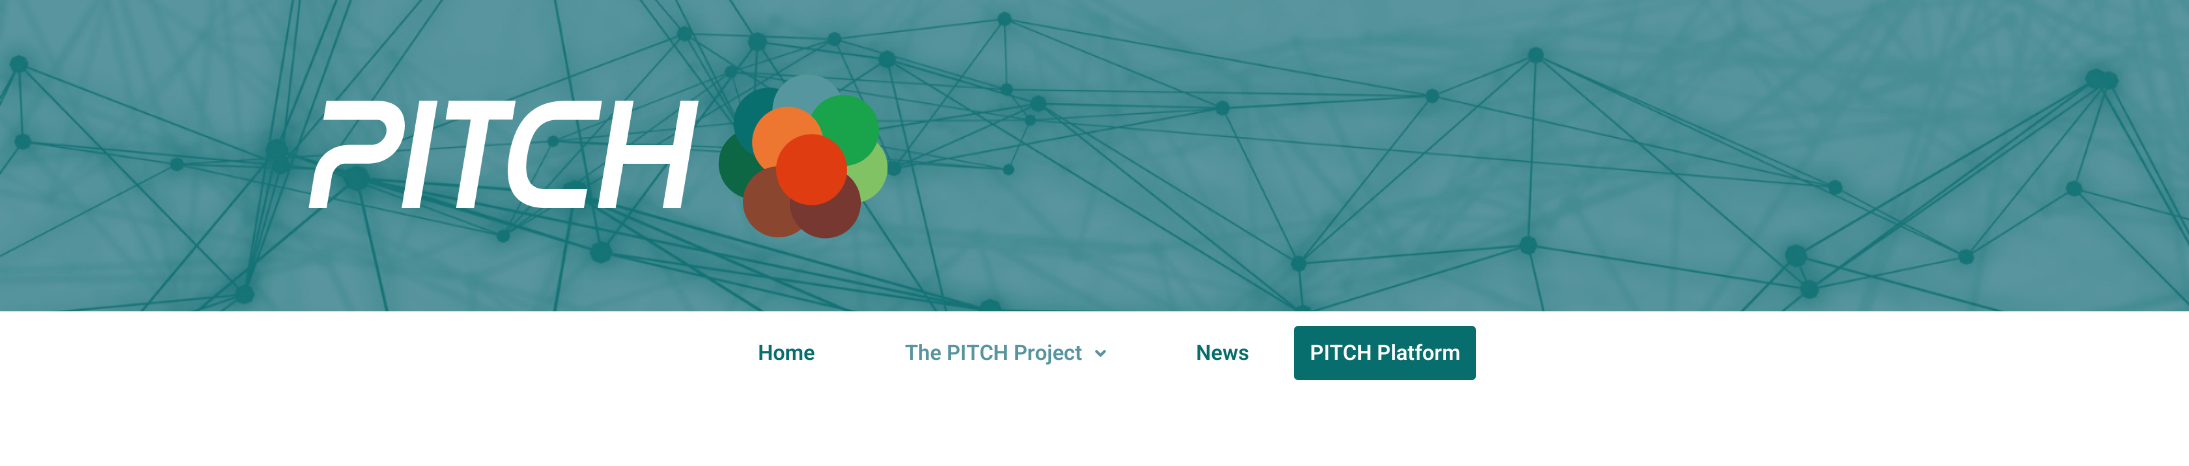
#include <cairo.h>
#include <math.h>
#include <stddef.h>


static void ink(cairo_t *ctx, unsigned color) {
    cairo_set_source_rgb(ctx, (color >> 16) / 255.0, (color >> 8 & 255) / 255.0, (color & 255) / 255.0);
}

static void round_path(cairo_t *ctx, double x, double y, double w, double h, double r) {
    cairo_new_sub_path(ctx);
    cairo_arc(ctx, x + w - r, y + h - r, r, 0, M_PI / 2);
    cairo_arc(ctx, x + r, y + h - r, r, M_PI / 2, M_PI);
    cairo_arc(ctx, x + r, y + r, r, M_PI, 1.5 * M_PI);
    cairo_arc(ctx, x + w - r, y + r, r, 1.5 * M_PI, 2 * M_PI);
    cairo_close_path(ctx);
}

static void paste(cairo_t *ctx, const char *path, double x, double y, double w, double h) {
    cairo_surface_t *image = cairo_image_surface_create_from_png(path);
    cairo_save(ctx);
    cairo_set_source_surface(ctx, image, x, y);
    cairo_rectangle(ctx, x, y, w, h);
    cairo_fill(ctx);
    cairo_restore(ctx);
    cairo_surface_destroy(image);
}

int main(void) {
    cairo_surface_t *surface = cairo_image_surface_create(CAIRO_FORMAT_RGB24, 2189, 466);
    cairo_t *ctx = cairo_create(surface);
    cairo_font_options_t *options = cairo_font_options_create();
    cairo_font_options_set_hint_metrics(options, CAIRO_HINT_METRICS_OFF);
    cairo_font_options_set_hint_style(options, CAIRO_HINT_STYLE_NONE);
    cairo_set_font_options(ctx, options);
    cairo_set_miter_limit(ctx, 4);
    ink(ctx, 0xFFFFFF);
    cairo_paint(ctx);
    paste(ctx, "media/1.png", 0, 0, 2189, 312);
    paste(ctx, "media/2.png", 308, 74, 580, 165);
    cairo_select_font_face(ctx, "Roboto SemiBold", CAIRO_FONT_SLANT_NORMAL, CAIRO_FONT_WEIGHT_NORMAL);
    cairo_set_font_size(ctx, 21.25);
    ink(ctx, 0x076D6D);
    cairo_move_to(ctx, 758, 360);
    cairo_show_text(ctx, "Home");
    ink(ctx, 0x58959E);
    cairo_move_to(ctx, 905, 360);
    cairo_show_text(ctx, "The PITCH Project");
    paste(ctx, "media/3.png", 1095, 350, 11, 7);
    ink(ctx, 0x076D6D);
    cairo_move_to(ctx, 1196, 360);
    cairo_show_text(ctx, "News");
    round_path(ctx, 1294, 326, 182, 54, 4);
    cairo_fill(ctx);
    ink(ctx, 0xFFFFFF);
    cairo_move_to(ctx, 1310, 360);
    cairo_show_text(ctx, "PITCH Platform");
    cairo_surface_write_to_png(surface, "image.png");
    cairo_font_options_destroy(options);
    cairo_destroy(ctx);
    cairo_surface_destroy(surface);
    return 0;
}
